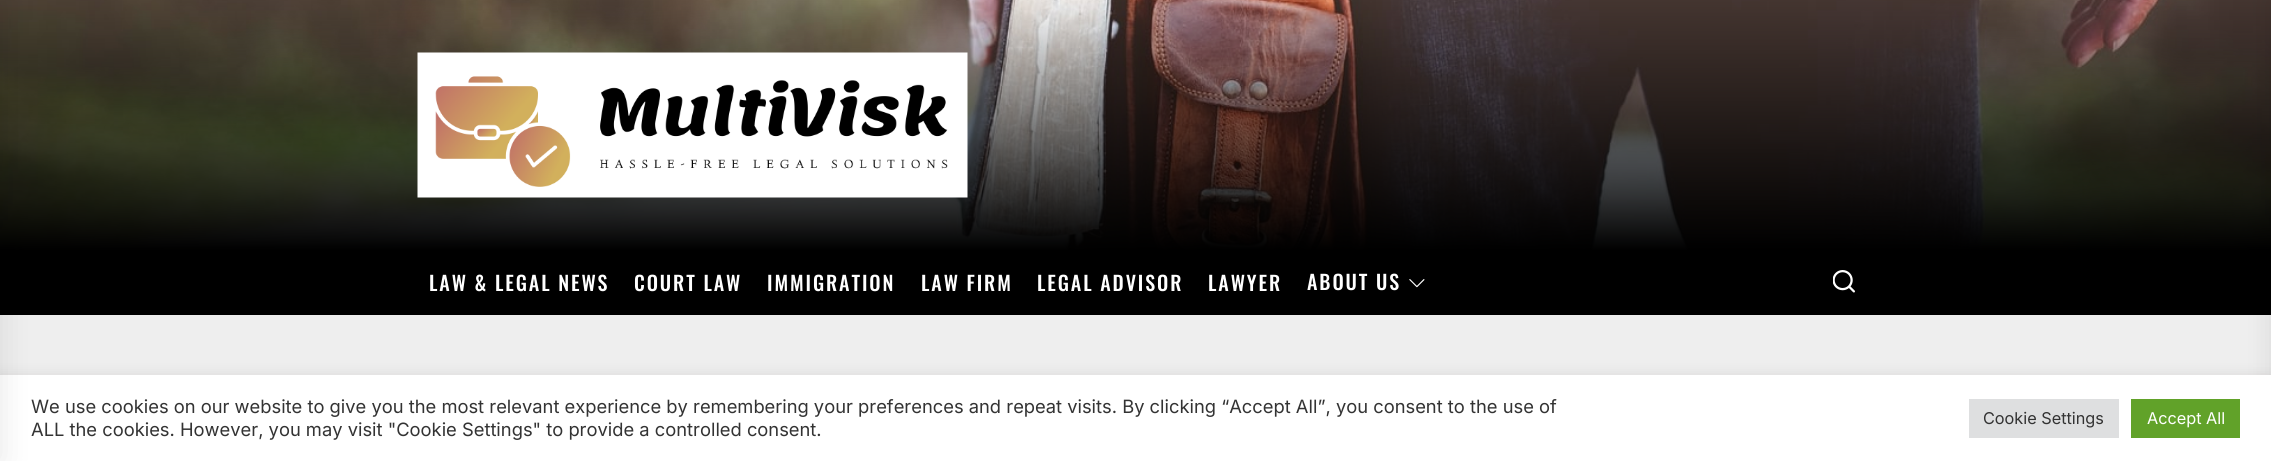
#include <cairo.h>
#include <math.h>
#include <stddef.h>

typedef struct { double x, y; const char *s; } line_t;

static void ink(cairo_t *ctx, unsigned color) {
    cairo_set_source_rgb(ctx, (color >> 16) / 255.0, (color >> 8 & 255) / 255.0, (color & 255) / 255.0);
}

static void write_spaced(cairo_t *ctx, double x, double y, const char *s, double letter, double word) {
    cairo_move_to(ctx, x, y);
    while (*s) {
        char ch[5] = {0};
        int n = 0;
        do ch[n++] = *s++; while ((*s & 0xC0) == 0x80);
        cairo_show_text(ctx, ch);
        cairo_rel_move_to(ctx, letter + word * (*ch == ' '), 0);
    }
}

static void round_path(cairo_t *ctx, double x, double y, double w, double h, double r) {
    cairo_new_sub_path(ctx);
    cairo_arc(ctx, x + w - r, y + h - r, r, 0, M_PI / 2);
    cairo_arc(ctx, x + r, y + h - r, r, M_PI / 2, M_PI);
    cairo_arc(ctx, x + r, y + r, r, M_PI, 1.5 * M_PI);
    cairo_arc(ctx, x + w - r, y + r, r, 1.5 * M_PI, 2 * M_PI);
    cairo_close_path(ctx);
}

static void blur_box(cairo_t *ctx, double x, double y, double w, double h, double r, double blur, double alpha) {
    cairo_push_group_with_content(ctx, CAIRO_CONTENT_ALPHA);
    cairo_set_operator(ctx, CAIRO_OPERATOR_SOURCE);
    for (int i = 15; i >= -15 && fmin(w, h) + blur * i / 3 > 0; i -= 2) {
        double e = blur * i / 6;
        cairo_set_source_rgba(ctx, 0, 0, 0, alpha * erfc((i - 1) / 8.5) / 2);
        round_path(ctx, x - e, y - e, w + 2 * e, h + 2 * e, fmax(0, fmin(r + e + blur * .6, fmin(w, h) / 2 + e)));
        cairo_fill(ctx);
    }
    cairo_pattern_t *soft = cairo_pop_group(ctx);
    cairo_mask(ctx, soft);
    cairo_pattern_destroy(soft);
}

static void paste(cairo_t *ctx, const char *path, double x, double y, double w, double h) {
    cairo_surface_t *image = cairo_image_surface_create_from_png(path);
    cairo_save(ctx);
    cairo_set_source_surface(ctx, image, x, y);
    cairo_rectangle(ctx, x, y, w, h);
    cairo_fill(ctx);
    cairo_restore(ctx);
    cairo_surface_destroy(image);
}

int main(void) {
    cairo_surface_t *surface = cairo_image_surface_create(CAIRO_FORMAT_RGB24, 2271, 461);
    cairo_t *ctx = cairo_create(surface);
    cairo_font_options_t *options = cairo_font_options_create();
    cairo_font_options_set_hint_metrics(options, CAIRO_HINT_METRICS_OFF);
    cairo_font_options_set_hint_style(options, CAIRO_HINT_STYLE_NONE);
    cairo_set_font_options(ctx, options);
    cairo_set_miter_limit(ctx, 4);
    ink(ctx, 0xEEEEEE);
    cairo_paint(ctx);
    paste(ctx, "media/1.png", 0, 0, 2271, 250);
    ink(ctx, 0x000000);
    cairo_rectangle(ctx, 0, 250, 2271, 65);
    cairo_fill(ctx);
    ink(ctx, 0x000000);
    blur_box(ctx, 2271, 0, 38, 461, 0, 12.5, 0.1);
    ink(ctx, 0xACABAB);
    blur_box(ctx, 0, 374, 2271, 86, 0, 6, 0.3);
    ink(ctx, 0xFFFFFF);
    cairo_rectangle(ctx, 0, 375, 2271, 86);
    cairo_fill(ctx);
    ink(ctx, 0x000000);
    blur_box(ctx, -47, 0, 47, 461, 0, 15.5, 0.1);
    paste(ctx, "media/2.png", 417, 52, 551, 146);
    cairo_select_font_face(ctx, "Oswald Medium", CAIRO_FONT_SLANT_NORMAL, CAIRO_FONT_WEIGHT_NORMAL);
    cairo_set_font_size(ctx, 20);
    ink(ctx, 0xFFFFFF);
    {
        static const line_t items[] = {
            {429, 291, "LAW & LEGAL NEWS"},
            {634, 291, "COURT LAW"},
            {767, 291, "IMMIGRATION"},
            {921, 291, "LAW FIRM"},
            {1037, 291, "LEGAL ADVISOR"},
            {1208, 291, "LAWYER"},
            {1307, 290, "ABOUT US"},
        };
        for (size_t i = 0; i < sizeof items / sizeof *items; i++) {
            write_spaced(ctx, items[i].x, items[i].y, items[i].s, 1.9, 0);
        }
    }
    paste(ctx, "media/3.png", 1409, 279, 16, 9);
    paste(ctx, "media/4.png", 1833, 270, 22, 23);
    cairo_select_font_face(ctx, "Inter", CAIRO_FONT_SLANT_NORMAL, CAIRO_FONT_WEIGHT_NORMAL);
    cairo_set_font_size(ctx, 18.33);
    ink(ctx, 0x333333);
    cairo_move_to(ctx, 31, 413);
    cairo_show_text(ctx, "We use cookies on our website to give you the most relevant experience by remembering your preferences and repeat visits. By clicking “Accept All”, you consent to the use of");
    cairo_move_to(ctx, 31, 436);
    cairo_show_text(ctx, "ALL the cookies. However, you may visit \"Cookie Settings\" to provide a controlled consent.");
    ink(ctx, 0xDEDFE0);
    cairo_rectangle(ctx, 1969, 399, 150, 39);
    cairo_fill(ctx);
    cairo_set_font_size(ctx, 16.25);
    ink(ctx, 0x333333);
    cairo_move_to(ctx, 1983, 424);
    cairo_show_text(ctx, "Cookie Settings");
    ink(ctx, 0x61A229);
    cairo_rectangle(ctx, 2131, 399, 109, 39);
    cairo_fill(ctx);
    ink(ctx, 0xFFFFFF);
    cairo_move_to(ctx, 2147, 424);
    cairo_show_text(ctx, "Accept All");
    cairo_surface_write_to_png(surface, "image.png");
    cairo_font_options_destroy(options);
    cairo_destroy(ctx);
    cairo_surface_destroy(surface);
    return 0;
}
